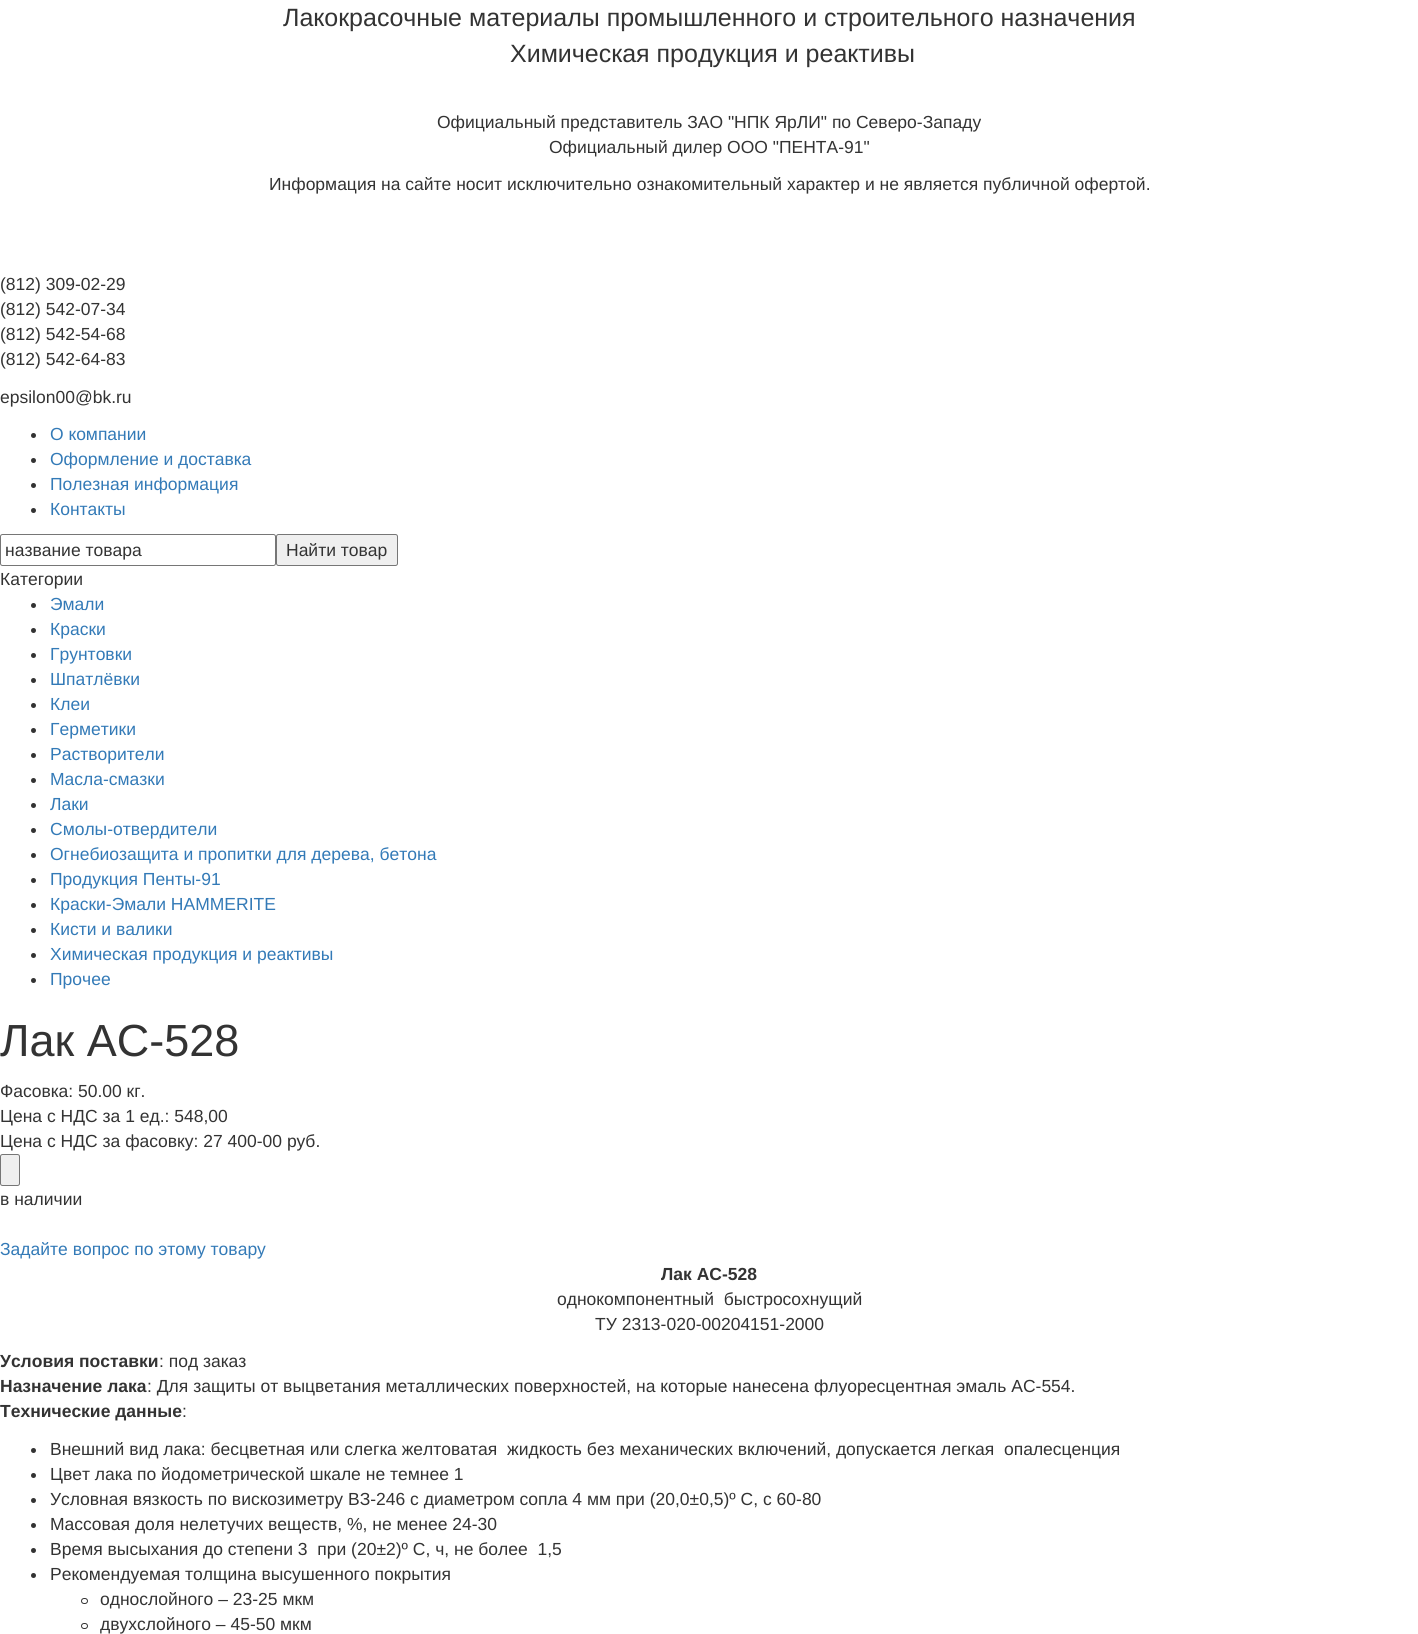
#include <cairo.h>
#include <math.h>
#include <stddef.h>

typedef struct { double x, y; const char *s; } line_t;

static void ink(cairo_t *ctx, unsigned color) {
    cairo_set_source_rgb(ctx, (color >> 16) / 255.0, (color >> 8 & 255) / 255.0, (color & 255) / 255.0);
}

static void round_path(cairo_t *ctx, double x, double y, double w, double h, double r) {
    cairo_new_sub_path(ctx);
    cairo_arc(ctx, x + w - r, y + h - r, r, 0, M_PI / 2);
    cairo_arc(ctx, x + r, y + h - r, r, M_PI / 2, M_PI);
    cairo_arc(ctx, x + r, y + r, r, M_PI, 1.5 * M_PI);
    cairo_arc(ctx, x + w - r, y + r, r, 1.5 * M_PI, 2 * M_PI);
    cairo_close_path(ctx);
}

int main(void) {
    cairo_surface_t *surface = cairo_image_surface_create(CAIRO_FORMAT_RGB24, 1418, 1634);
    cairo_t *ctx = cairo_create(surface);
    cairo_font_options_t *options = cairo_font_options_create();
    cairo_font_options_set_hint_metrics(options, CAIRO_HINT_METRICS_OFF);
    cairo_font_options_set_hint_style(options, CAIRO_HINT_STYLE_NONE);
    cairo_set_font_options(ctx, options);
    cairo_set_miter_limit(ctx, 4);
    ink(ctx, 0xFFFFFF);
    cairo_paint(ctx);
    cairo_select_font_face(ctx, "Liberation Sans", CAIRO_FONT_SLANT_NORMAL, CAIRO_FONT_WEIGHT_NORMAL);
    cairo_set_font_size(ctx, 25);
    ink(ctx, 0x333333);
    cairo_move_to(ctx, 283, 26);
    cairo_show_text(ctx, "Лакокрасочные материалы промышленного и строительного назначения");
    cairo_move_to(ctx, 510, 62);
    cairo_show_text(ctx, "Химическая продукция и реактивы");
    cairo_set_font_size(ctx, 17.5);
    {
        static const line_t items[] = {
            {437, 128, "Официальный представитель ЗАО \"НПК ЯрЛИ\" по Северо-Западу"},
            {549, 153, "Официальный дилер ООО \"ПЕНТА-91\""},
            {269, 190, "Информация на сайте носит исключительно ознакомительный характер и не является публичной офертой."},
            {0, 290, "(812) 309-02-29"},
            {0, 315, "(812) 542-07-34"},
            {0, 340, "(812) 542-54-68"},
            {0, 365, "(812) 542-64-83"},
            {0, 403, "epsilon00@bk.ru"},
        };
        for (size_t i = 0; i < sizeof items / sizeof *items; i++) {
            cairo_move_to(ctx, items[i].x, items[i].y);
            cairo_show_text(ctx, items[i].s);
        }
    }
    cairo_new_path(ctx);
    cairo_arc(ctx, 33.5, 435.5, 2.5, 0, 2 * M_PI);
    cairo_fill(ctx);
    ink(ctx, 0x337AB7);
    cairo_move_to(ctx, 50, 440);
    cairo_show_text(ctx, "О компании");
    ink(ctx, 0x333333);
    cairo_new_path(ctx);
    cairo_arc(ctx, 33.5, 460.5, 2.5, 0, 2 * M_PI);
    cairo_fill(ctx);
    ink(ctx, 0x337AB7);
    cairo_move_to(ctx, 50, 465);
    cairo_show_text(ctx, "Оформление и доставка");
    ink(ctx, 0x333333);
    cairo_new_path(ctx);
    cairo_arc(ctx, 33.5, 485.5, 2.5, 0, 2 * M_PI);
    cairo_fill(ctx);
    ink(ctx, 0x337AB7);
    cairo_move_to(ctx, 50, 490);
    cairo_show_text(ctx, "Полезная информация");
    ink(ctx, 0x333333);
    cairo_new_path(ctx);
    cairo_arc(ctx, 33.5, 510.5, 2.5, 0, 2 * M_PI);
    cairo_fill(ctx);
    ink(ctx, 0x337AB7);
    cairo_move_to(ctx, 50, 515);
    cairo_show_text(ctx, "Контакты");
    round_path(ctx, 0.5, 534.5, 275, 31, 2);
    ink(ctx, 0x767676);
    cairo_set_line_width(ctx, 1);
    cairo_stroke(ctx);
    ink(ctx, 0x333333);
    cairo_move_to(ctx, 5, 556);
    cairo_show_text(ctx, "название товара");
    ink(ctx, 0xEFEFEF);
    round_path(ctx, 276.5, 534.5, 121, 31, 2);
    cairo_fill_preserve(ctx);
    ink(ctx, 0x767676);
    cairo_stroke(ctx);
    ink(ctx, 0x333333);
    cairo_move_to(ctx, 286, 556);
    cairo_show_text(ctx, "Найти товар");
    cairo_move_to(ctx, 0, 585);
    cairo_show_text(ctx, "Категории");
    cairo_new_path(ctx);
    cairo_arc(ctx, 33.5, 605.5, 2.5, 0, 2 * M_PI);
    cairo_fill(ctx);
    ink(ctx, 0x337AB7);
    cairo_move_to(ctx, 50, 610);
    cairo_show_text(ctx, "Эмали");
    ink(ctx, 0x333333);
    cairo_new_path(ctx);
    cairo_arc(ctx, 33.5, 630.5, 2.5, 0, 2 * M_PI);
    cairo_fill(ctx);
    ink(ctx, 0x337AB7);
    cairo_move_to(ctx, 50, 635);
    cairo_show_text(ctx, "Краски");
    ink(ctx, 0x333333);
    cairo_new_path(ctx);
    cairo_arc(ctx, 33.5, 655.5, 2.5, 0, 2 * M_PI);
    cairo_fill(ctx);
    ink(ctx, 0x337AB7);
    cairo_move_to(ctx, 50, 660);
    cairo_show_text(ctx, "Грунтовки");
    ink(ctx, 0x333333);
    cairo_new_path(ctx);
    cairo_arc(ctx, 33.5, 680.5, 2.5, 0, 2 * M_PI);
    cairo_fill(ctx);
    ink(ctx, 0x337AB7);
    cairo_move_to(ctx, 50, 685);
    cairo_show_text(ctx, "Шпатлёвки");
    ink(ctx, 0x333333);
    cairo_new_path(ctx);
    cairo_arc(ctx, 33.5, 705.5, 2.5, 0, 2 * M_PI);
    cairo_fill(ctx);
    ink(ctx, 0x337AB7);
    cairo_move_to(ctx, 50, 710);
    cairo_show_text(ctx, "Клеи");
    ink(ctx, 0x333333);
    cairo_new_path(ctx);
    cairo_arc(ctx, 33.5, 730.5, 2.5, 0, 2 * M_PI);
    cairo_fill(ctx);
    ink(ctx, 0x337AB7);
    cairo_move_to(ctx, 50, 735);
    cairo_show_text(ctx, "Герметики");
    ink(ctx, 0x333333);
    cairo_new_path(ctx);
    cairo_arc(ctx, 33.5, 755.5, 2.5, 0, 2 * M_PI);
    cairo_fill(ctx);
    ink(ctx, 0x337AB7);
    cairo_move_to(ctx, 50, 760);
    cairo_show_text(ctx, "Растворители");
    ink(ctx, 0x333333);
    cairo_new_path(ctx);
    cairo_arc(ctx, 33.5, 780.5, 2.5, 0, 2 * M_PI);
    cairo_fill(ctx);
    ink(ctx, 0x337AB7);
    cairo_move_to(ctx, 50, 785);
    cairo_show_text(ctx, "Масла-смазки");
    ink(ctx, 0x333333);
    cairo_new_path(ctx);
    cairo_arc(ctx, 33.5, 805.5, 2.5, 0, 2 * M_PI);
    cairo_fill(ctx);
    ink(ctx, 0x337AB7);
    cairo_move_to(ctx, 50, 810);
    cairo_show_text(ctx, "Лаки");
    ink(ctx, 0x333333);
    cairo_new_path(ctx);
    cairo_arc(ctx, 33.5, 830.5, 2.5, 0, 2 * M_PI);
    cairo_fill(ctx);
    ink(ctx, 0x337AB7);
    cairo_move_to(ctx, 50, 835);
    cairo_show_text(ctx, "Смолы-отвердители");
    ink(ctx, 0x333333);
    cairo_new_path(ctx);
    cairo_arc(ctx, 33.5, 855.5, 2.5, 0, 2 * M_PI);
    cairo_fill(ctx);
    ink(ctx, 0x337AB7);
    cairo_move_to(ctx, 50, 860);
    cairo_show_text(ctx, "Огнебиозащита и пропитки для дерева, бетона");
    ink(ctx, 0x333333);
    cairo_new_path(ctx);
    cairo_arc(ctx, 33.5, 880.5, 2.5, 0, 2 * M_PI);
    cairo_fill(ctx);
    ink(ctx, 0x337AB7);
    cairo_move_to(ctx, 50, 885);
    cairo_show_text(ctx, "Продукция Пенты-91");
    ink(ctx, 0x333333);
    cairo_new_path(ctx);
    cairo_arc(ctx, 33.5, 905.5, 2.5, 0, 2 * M_PI);
    cairo_fill(ctx);
    ink(ctx, 0x337AB7);
    cairo_move_to(ctx, 50, 910);
    cairo_show_text(ctx, "Краски-Эмали HAMMERITE");
    ink(ctx, 0x333333);
    cairo_new_path(ctx);
    cairo_arc(ctx, 33.5, 930.5, 2.5, 0, 2 * M_PI);
    cairo_fill(ctx);
    ink(ctx, 0x337AB7);
    cairo_move_to(ctx, 50, 935);
    cairo_show_text(ctx, "Кисти и валики");
    ink(ctx, 0x333333);
    cairo_new_path(ctx);
    cairo_arc(ctx, 33.5, 955.5, 2.5, 0, 2 * M_PI);
    cairo_fill(ctx);
    ink(ctx, 0x337AB7);
    cairo_move_to(ctx, 50, 960);
    cairo_show_text(ctx, "Химическая продукция и реактивы");
    ink(ctx, 0x333333);
    cairo_new_path(ctx);
    cairo_arc(ctx, 33.5, 980.5, 2.5, 0, 2 * M_PI);
    cairo_fill(ctx);
    ink(ctx, 0x337AB7);
    cairo_move_to(ctx, 50, 985);
    cairo_show_text(ctx, "Прочее");
    cairo_set_font_size(ctx, 45);
    ink(ctx, 0x333333);
    cairo_move_to(ctx, 0, 1056);
    cairo_show_text(ctx, "Лак АС-528");
    cairo_set_font_size(ctx, 17.5);
    {
        static const line_t items[] = {
            {0, 1097, "Фасовка: 50.00 кг."},
            {0, 1122, "Цена с НДС за 1 ед.: 548,00"},
            {0, 1147, "Цена с НДС за фасовку: 27 400-00 руб."},
        };
        for (size_t i = 0; i < sizeof items / sizeof *items; i++) {
            cairo_move_to(ctx, items[i].x, items[i].y);
            cairo_show_text(ctx, items[i].s);
        }
    }
    ink(ctx, 0xEFEFEF);
    round_path(ctx, 0.5, 1154.5, 19, 31, 2);
    cairo_fill_preserve(ctx);
    ink(ctx, 0x767676);
    cairo_stroke(ctx);
    ink(ctx, 0x333333);
    cairo_move_to(ctx, 0, 1205);
    cairo_show_text(ctx, "в наличии");
    ink(ctx, 0x337AB7);
    cairo_move_to(ctx, 0, 1255);
    cairo_show_text(ctx, "Задайте вопрос по этому товару");
    cairo_select_font_face(ctx, "Liberation Sans", CAIRO_FONT_SLANT_NORMAL, CAIRO_FONT_WEIGHT_BOLD);
    ink(ctx, 0x333333);
    cairo_move_to(ctx, 661, 1280);
    cairo_show_text(ctx, "Лак АС-528");
    cairo_select_font_face(ctx, "Liberation Sans", CAIRO_FONT_SLANT_NORMAL, CAIRO_FONT_WEIGHT_NORMAL);
    cairo_move_to(ctx, 557, 1305);
    cairo_show_text(ctx, "однокомпонентный  быстросохнущий");
    cairo_move_to(ctx, 595, 1330);
    cairo_show_text(ctx, "ТУ 2313-020-00204151-2000");
    cairo_select_font_face(ctx, "Liberation Sans", CAIRO_FONT_SLANT_NORMAL, CAIRO_FONT_WEIGHT_BOLD);
    cairo_move_to(ctx, 0, 1367);
    cairo_show_text(ctx, "Условия поставки");
    cairo_select_font_face(ctx, "Liberation Sans", CAIRO_FONT_SLANT_NORMAL, CAIRO_FONT_WEIGHT_NORMAL);
    cairo_move_to(ctx, 159, 1367);
    cairo_show_text(ctx, ": под заказ");
    cairo_select_font_face(ctx, "Liberation Sans", CAIRO_FONT_SLANT_NORMAL, CAIRO_FONT_WEIGHT_BOLD);
    cairo_move_to(ctx, 0, 1392);
    cairo_show_text(ctx, "Назначение лака");
    cairo_select_font_face(ctx, "Liberation Sans", CAIRO_FONT_SLANT_NORMAL, CAIRO_FONT_WEIGHT_NORMAL);
    cairo_move_to(ctx, 147, 1392);
    cairo_show_text(ctx, ": Для защиты от выцветания металлических поверхностей, на которые нанесена флуоресцентная эмаль АС-554.");
    cairo_select_font_face(ctx, "Liberation Sans", CAIRO_FONT_SLANT_NORMAL, CAIRO_FONT_WEIGHT_BOLD);
    cairo_move_to(ctx, 0, 1417);
    cairo_show_text(ctx, "Технические данные");
    cairo_select_font_face(ctx, "Liberation Sans", CAIRO_FONT_SLANT_NORMAL, CAIRO_FONT_WEIGHT_NORMAL);
    cairo_move_to(ctx, 182, 1417);
    cairo_show_text(ctx, ":");
    cairo_new_path(ctx);
    cairo_arc(ctx, 33.5, 1450.5, 2.5, 0, 2 * M_PI);
    cairo_fill(ctx);
    cairo_move_to(ctx, 50, 1455);
    cairo_show_text(ctx, "Внешний вид лака: бесцветная или слегка желтоватая  жидкость без механических включений, допускается легкая  опалесценция");
    cairo_new_path(ctx);
    cairo_arc(ctx, 33.5, 1475.5, 2.5, 0, 2 * M_PI);
    cairo_fill(ctx);
    cairo_move_to(ctx, 50, 1480);
    cairo_show_text(ctx, "Цвет лака по йодометрической шкале не темнее 1");
    cairo_new_path(ctx);
    cairo_arc(ctx, 33.5, 1500.5, 2.5, 0, 2 * M_PI);
    cairo_fill(ctx);
    cairo_move_to(ctx, 50, 1505);
    cairo_show_text(ctx, "Условная вязкость по вискозиметру ВЗ-246 с диаметром сопла 4 мм при (20,0±0,5)º С, с 60-80");
    cairo_new_path(ctx);
    cairo_arc(ctx, 33.5, 1525.5, 2.5, 0, 2 * M_PI);
    cairo_fill(ctx);
    cairo_move_to(ctx, 50, 1530);
    cairo_show_text(ctx, "Массовая доля нелетучих веществ, %, не менее 24-30");
    cairo_new_path(ctx);
    cairo_arc(ctx, 33.5, 1550.5, 2.5, 0, 2 * M_PI);
    cairo_fill(ctx);
    cairo_move_to(ctx, 50, 1555);
    cairo_show_text(ctx, "Время высыхания до степени 3  при (20±2)º С, ч, не более  1,5");
    cairo_new_path(ctx);
    cairo_arc(ctx, 33.5, 1575.5, 2.5, 0, 2 * M_PI);
    cairo_fill(ctx);
    cairo_move_to(ctx, 50, 1580);
    cairo_show_text(ctx, "Рекомендуемая толщина высушенного покрытия");
    round_path(ctx, 81.5, 1598.5, 6, 5, 2.5);
    cairo_stroke(ctx);
    cairo_move_to(ctx, 100, 1605);
    cairo_show_text(ctx, "однослойного – 23-25 мкм");
    round_path(ctx, 81.5, 1623.5, 6, 5, 2.5);
    cairo_stroke(ctx);
    cairo_move_to(ctx, 100, 1630);
    cairo_show_text(ctx, "двухслойного – 45-50 мкм");
    cairo_surface_write_to_png(surface, "image.png");
    cairo_font_options_destroy(options);
    cairo_destroy(ctx);
    cairo_surface_destroy(surface);
    return 0;
}
